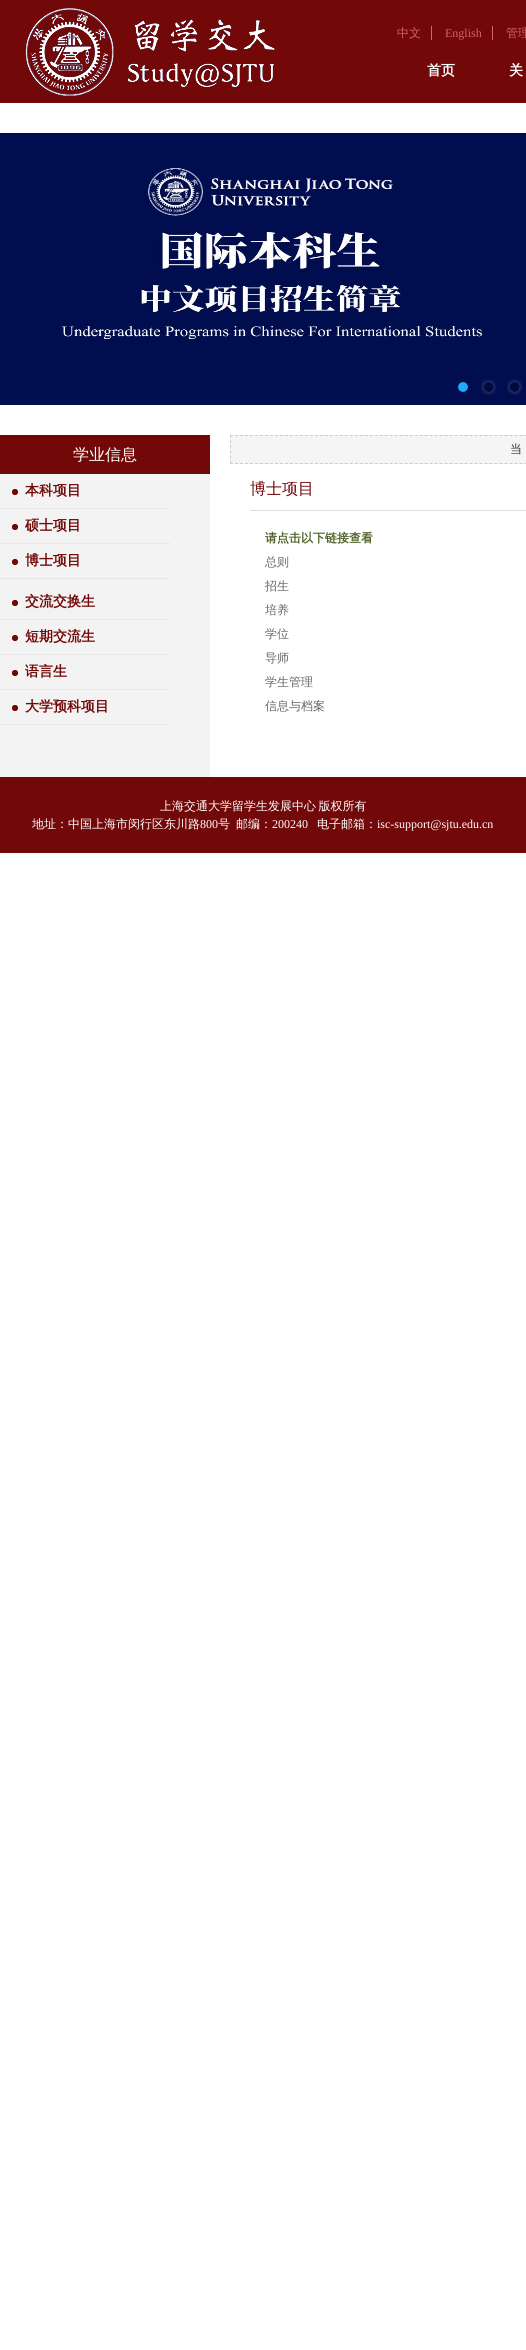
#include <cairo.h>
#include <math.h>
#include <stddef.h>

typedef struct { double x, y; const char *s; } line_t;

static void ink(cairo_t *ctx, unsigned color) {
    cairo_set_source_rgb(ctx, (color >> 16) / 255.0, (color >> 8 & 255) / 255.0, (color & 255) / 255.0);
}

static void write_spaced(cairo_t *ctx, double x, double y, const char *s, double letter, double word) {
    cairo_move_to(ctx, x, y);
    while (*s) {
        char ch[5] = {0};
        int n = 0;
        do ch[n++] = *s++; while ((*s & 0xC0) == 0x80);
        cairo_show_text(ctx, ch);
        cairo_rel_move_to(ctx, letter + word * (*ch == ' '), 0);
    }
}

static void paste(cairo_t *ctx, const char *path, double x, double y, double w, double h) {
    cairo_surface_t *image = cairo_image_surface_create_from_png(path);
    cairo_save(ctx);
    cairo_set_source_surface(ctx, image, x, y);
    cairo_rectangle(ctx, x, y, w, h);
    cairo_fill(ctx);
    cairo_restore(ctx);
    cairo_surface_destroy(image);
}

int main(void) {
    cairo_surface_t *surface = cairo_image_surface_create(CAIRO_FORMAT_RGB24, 526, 2350);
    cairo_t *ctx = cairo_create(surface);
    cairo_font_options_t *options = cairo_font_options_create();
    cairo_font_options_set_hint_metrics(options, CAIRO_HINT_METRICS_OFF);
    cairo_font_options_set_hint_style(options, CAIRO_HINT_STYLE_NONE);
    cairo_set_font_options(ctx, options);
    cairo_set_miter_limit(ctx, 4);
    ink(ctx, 0xFFFFFF);
    cairo_paint(ctx);
    ink(ctx, 0x720808);
    cairo_rectangle(ctx, 0, 0, 526, 103);
    cairo_fill(ctx);
    paste(ctx, "media/1.png", 25, 8, 250, 88);
    cairo_select_font_face(ctx, "WenQuanYi Zen Hei Medium", CAIRO_FONT_SLANT_NORMAL, CAIRO_FONT_WEIGHT_NORMAL);
    cairo_set_font_size(ctx, 12);
    ink(ctx, 0xD76363);
    cairo_move_to(ctx, 397, 37);
    cairo_show_text(ctx, "中文");
    cairo_rectangle(ctx, 431, 26, 1, 14);
    cairo_fill(ctx);
    cairo_select_font_face(ctx, "Liberation Serif", CAIRO_FONT_SLANT_NORMAL, CAIRO_FONT_WEIGHT_NORMAL);
    cairo_move_to(ctx, 445, 37);
    cairo_show_text(ctx, "English");
    cairo_rectangle(ctx, 492, 26, 1, 14);
    cairo_fill(ctx);
    cairo_select_font_face(ctx, "WenQuanYi Zen Hei Medium", CAIRO_FONT_SLANT_NORMAL, CAIRO_FONT_WEIGHT_NORMAL);
    cairo_move_to(ctx, 506, 37);
    cairo_show_text(ctx, "管理");
    cairo_select_font_face(ctx, "WenQuanYi Zen Hei", CAIRO_FONT_SLANT_NORMAL, CAIRO_FONT_WEIGHT_BOLD);
    cairo_set_font_size(ctx, 14);
    ink(ctx, 0xFFFFFF);
    cairo_move_to(ctx, 427, 75);
    cairo_show_text(ctx, "首页");
    cairo_move_to(ctx, 509, 75);
    cairo_show_text(ctx, "关");
    paste(ctx, "media/2.png", 0, 133, 526, 272);
    paste(ctx, "media/3.png", 458, 382, 10, 10);
    paste(ctx, "media/4.png", 481, 379, 15, 16);
    paste(ctx, "media/4.png", 507, 379, 15, 16);
    ink(ctx, 0xF3F3F3);
    cairo_rectangle(ctx, 0, 474, 210, 303);
    cairo_fill(ctx);
    ink(ctx, 0x720808);
    cairo_rectangle(ctx, 0, 435, 210, 39);
    cairo_fill(ctx);
    cairo_select_font_face(ctx, "WenQuanYi Zen Hei Medium", CAIRO_FONT_SLANT_NORMAL, CAIRO_FONT_WEIGHT_NORMAL);
    cairo_set_font_size(ctx, 16);
    ink(ctx, 0xFFFFFF);
    cairo_move_to(ctx, 73, 460);
    cairo_show_text(ctx, "学业信息");
    paste(ctx, "media/5.png", 10, 488, 8, 8);
    ink(ctx, 0xE7E7E7);
    cairo_rectangle(ctx, 0, 508, 170, 1);
    cairo_fill(ctx);
    cairo_select_font_face(ctx, "WenQuanYi Zen Hei", CAIRO_FONT_SLANT_NORMAL, CAIRO_FONT_WEIGHT_BOLD);
    cairo_set_font_size(ctx, 14);
    ink(ctx, 0x720808);
    cairo_move_to(ctx, 25, 495);
    cairo_show_text(ctx, "本科项目");
    paste(ctx, "media/5.png", 10, 523, 8, 8);
    ink(ctx, 0xE7E7E7);
    cairo_rectangle(ctx, 0, 543, 170, 1);
    cairo_fill(ctx);
    ink(ctx, 0x720808);
    cairo_move_to(ctx, 25, 530);
    cairo_show_text(ctx, "硕士项目");
    paste(ctx, "media/5.png", 10, 558, 8, 8);
    ink(ctx, 0xE7E7E7);
    cairo_rectangle(ctx, 0, 578, 170, 1);
    cairo_fill(ctx);
    ink(ctx, 0x720808);
    cairo_move_to(ctx, 25, 565);
    cairo_show_text(ctx, "博士项目");
    paste(ctx, "media/5.png", 10, 599, 8, 8);
    ink(ctx, 0xE7E7E7);
    cairo_rectangle(ctx, 0, 619, 170, 1);
    cairo_fill(ctx);
    ink(ctx, 0x720808);
    cairo_move_to(ctx, 25, 606);
    cairo_show_text(ctx, "交流交换生");
    paste(ctx, "media/5.png", 10, 634, 8, 8);
    ink(ctx, 0xE7E7E7);
    cairo_rectangle(ctx, 0, 654, 170, 1);
    cairo_fill(ctx);
    ink(ctx, 0x720808);
    cairo_move_to(ctx, 25, 641);
    cairo_show_text(ctx, "短期交流生");
    paste(ctx, "media/5.png", 10, 669, 8, 8);
    ink(ctx, 0xE7E7E7);
    cairo_rectangle(ctx, 0, 689, 170, 1);
    cairo_fill(ctx);
    ink(ctx, 0x720808);
    cairo_move_to(ctx, 25, 676);
    cairo_show_text(ctx, "语言生");
    paste(ctx, "media/5.png", 10, 704, 8, 8);
    ink(ctx, 0xE7E7E7);
    cairo_rectangle(ctx, 0, 724, 170, 1);
    cairo_fill(ctx);
    ink(ctx, 0x720808);
    cairo_move_to(ctx, 25, 711);
    cairo_show_text(ctx, "大学预科项目");
    ink(ctx, 0xF5F5F5);
    cairo_rectangle(ctx, 230, 435, 296, 29);
    cairo_fill(ctx);
    cairo_new_path(ctx);
    cairo_move_to(ctx, 230, 435.5);
    cairo_line_to(ctx, 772, 435.5);
    ink(ctx, 0xCCCCCC);
    cairo_set_line_width(ctx, 1);
    cairo_set_dash(ctx, (double[]){3, 1.99}, 2, 0);
    cairo_stroke(ctx);
    cairo_new_path(ctx);
    cairo_move_to(ctx, 230, 463.5);
    cairo_line_to(ctx, 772, 463.5);
    cairo_stroke(ctx);
    cairo_new_path(ctx);
    cairo_move_to(ctx, 230.5, 435);
    cairo_line_to(ctx, 230.5, 464);
    cairo_set_dash(ctx, (double[]){3, 2.2}, 2, 0);
    cairo_stroke(ctx);
    cairo_select_font_face(ctx, "WenQuanYi Zen Hei Medium", CAIRO_FONT_SLANT_NORMAL, CAIRO_FONT_WEIGHT_NORMAL);
    cairo_set_font_size(ctx, 12);
    ink(ctx, 0x333333);
    cairo_move_to(ctx, 510, 453);
    cairo_show_text(ctx, "当");
    ink(ctx, 0xDDDDDD);
    cairo_rectangle(ctx, 250, 510, 276, 1);
    cairo_fill(ctx);
    cairo_set_font_size(ctx, 16);
    ink(ctx, 0x720808);
    cairo_move_to(ctx, 250, 494);
    cairo_show_text(ctx, "博士项目");
    cairo_select_font_face(ctx, "WenQuanYi Zen Hei", CAIRO_FONT_SLANT_NORMAL, CAIRO_FONT_WEIGHT_BOLD);
    cairo_set_font_size(ctx, 12);
    ink(ctx, 0x4F6128);
    cairo_move_to(ctx, 265, 542);
    cairo_show_text(ctx, "请点击以下链接查看");
    cairo_select_font_face(ctx, "WenQuanYi Zen Hei Medium", CAIRO_FONT_SLANT_NORMAL, CAIRO_FONT_WEIGHT_NORMAL);
    ink(ctx, 0x666666);
    {
        static const line_t items[] = {
            {265, 566, "总则"},
            {265, 590, "招生"},
            {265, 614, "培养"},
            {265, 638, "学位"},
            {265, 662, "导师"},
            {265, 686, "学生管理"},
            {265, 710, "信息与档案"},
        };
        for (size_t i = 0; i < sizeof items / sizeof *items; i++) {
            cairo_move_to(ctx, items[i].x, items[i].y);
            cairo_show_text(ctx, items[i].s);
        }
    }
    ink(ctx, 0x720808);
    cairo_rectangle(ctx, 0, 777, 526, 76);
    cairo_fill(ctx);
    ink(ctx, 0xFFFFFF);
    write_spaced(ctx, 160, 810, "上海交通大学留学生发展中心 版权所有", 0, -1);
    cairo_move_to(ctx, 32, 828);
    cairo_show_text(ctx, "地址：中国上海市闵行区东川路");
    cairo_select_font_face(ctx, "Liberation Serif", CAIRO_FONT_SLANT_NORMAL, CAIRO_FONT_WEIGHT_NORMAL);
    cairo_move_to(ctx, 200, 828);
    cairo_show_text(ctx, "800");
    cairo_select_font_face(ctx, "WenQuanYi Zen Hei Medium", CAIRO_FONT_SLANT_NORMAL, CAIRO_FONT_WEIGHT_NORMAL);
    cairo_move_to(ctx, 218, 828);
    cairo_show_text(ctx, "号");
    cairo_move_to(ctx, 236, 828);
    cairo_show_text(ctx, "邮编：");
    cairo_select_font_face(ctx, "Liberation Serif", CAIRO_FONT_SLANT_NORMAL, CAIRO_FONT_WEIGHT_NORMAL);
    cairo_move_to(ctx, 272, 828);
    cairo_show_text(ctx, "200240");
    cairo_select_font_face(ctx, "WenQuanYi Zen Hei Medium", CAIRO_FONT_SLANT_NORMAL, CAIRO_FONT_WEIGHT_NORMAL);
    cairo_move_to(ctx, 317, 828);
    cairo_show_text(ctx, "电子邮箱：");
    cairo_select_font_face(ctx, "Liberation Serif", CAIRO_FONT_SLANT_NORMAL, CAIRO_FONT_WEIGHT_NORMAL);
    cairo_move_to(ctx, 377, 828);
    cairo_show_text(ctx, "isc-support@sjtu.edu.cn");
    cairo_surface_write_to_png(surface, "image.png");
    cairo_font_options_destroy(options);
    cairo_destroy(ctx);
    cairo_surface_destroy(surface);
    return 0;
}
